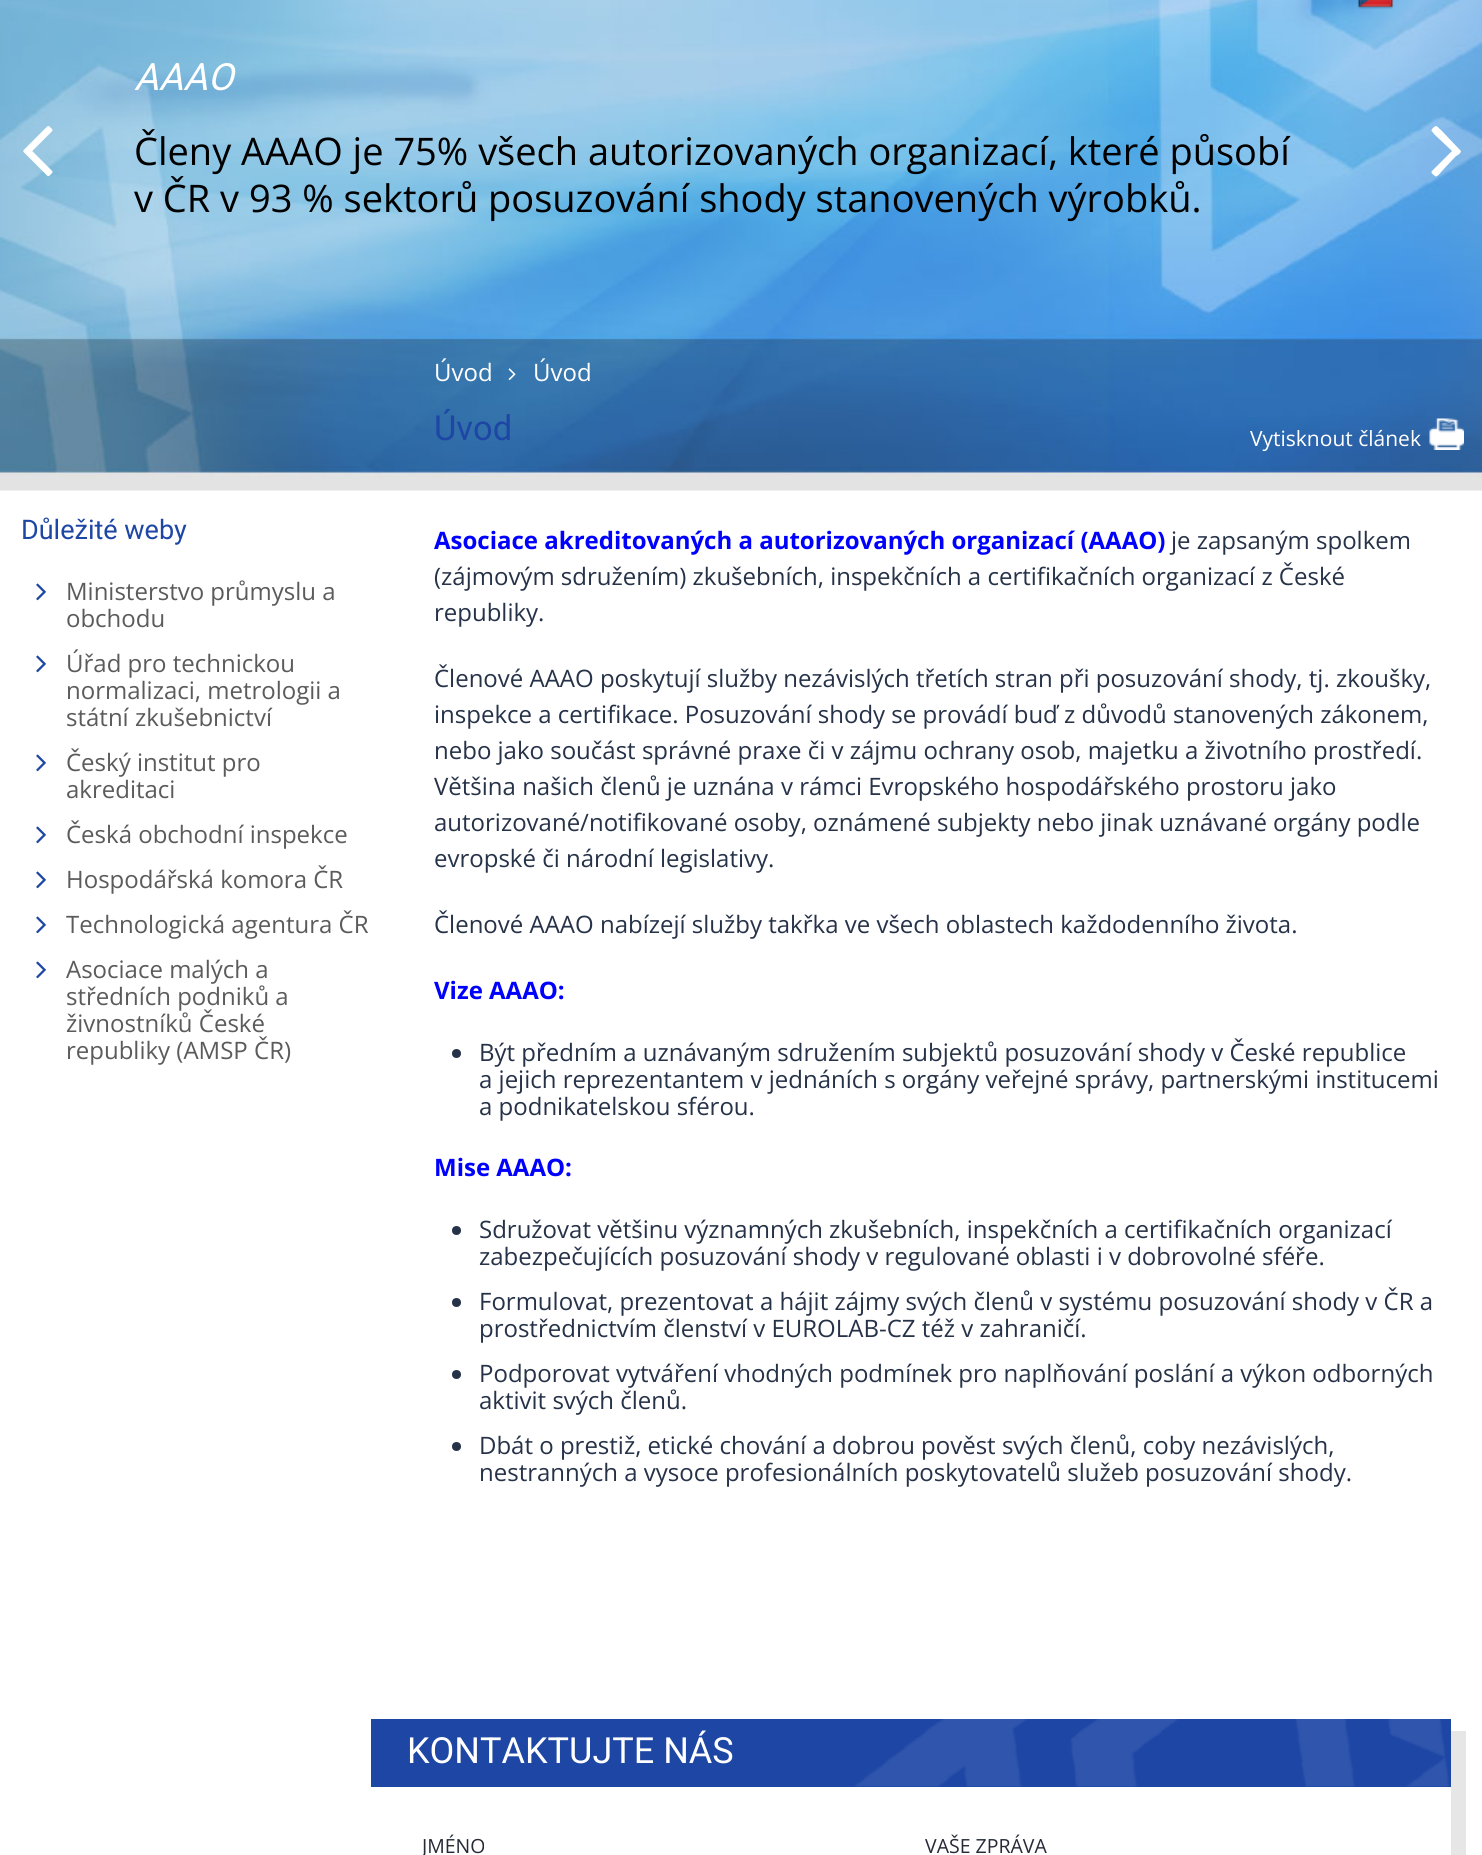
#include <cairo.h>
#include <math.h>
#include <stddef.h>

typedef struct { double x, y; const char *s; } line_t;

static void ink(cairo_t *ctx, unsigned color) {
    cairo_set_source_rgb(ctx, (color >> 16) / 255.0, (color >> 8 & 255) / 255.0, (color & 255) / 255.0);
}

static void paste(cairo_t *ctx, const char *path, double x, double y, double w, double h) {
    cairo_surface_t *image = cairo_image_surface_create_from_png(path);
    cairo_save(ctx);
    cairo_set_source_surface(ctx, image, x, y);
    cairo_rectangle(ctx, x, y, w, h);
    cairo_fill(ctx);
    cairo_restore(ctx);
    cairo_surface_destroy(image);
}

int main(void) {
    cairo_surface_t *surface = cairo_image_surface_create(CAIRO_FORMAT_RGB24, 1482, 1855);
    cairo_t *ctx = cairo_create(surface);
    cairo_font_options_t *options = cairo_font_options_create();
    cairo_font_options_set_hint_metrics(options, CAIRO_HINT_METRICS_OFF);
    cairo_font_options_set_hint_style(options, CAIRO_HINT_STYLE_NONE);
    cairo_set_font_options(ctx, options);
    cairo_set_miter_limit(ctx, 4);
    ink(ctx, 0xFFFFFF);
    cairo_paint(ctx);
    paste(ctx, "media/1.png", 0, 0, 1482, 491);
    paste(ctx, "media/2.png", 1357, 0, 37, 9);
    paste(ctx, "media/3.png", 23, 126, 30, 51);
    cairo_select_font_face(ctx, "Roboto", CAIRO_FONT_SLANT_ITALIC, CAIRO_FONT_WEIGHT_NORMAL);
    cairo_set_font_size(ctx, 37.5);
    ink(ctx, 0xFFFFFF);
    cairo_move_to(ctx, 134, 90);
    cairo_show_text(ctx, "AAAO");
    cairo_select_font_face(ctx, "Open Sans", CAIRO_FONT_SLANT_NORMAL, CAIRO_FONT_WEIGHT_NORMAL);
    cairo_set_font_size(ctx, 38);
    ink(ctx, 0x000000);
    cairo_move_to(ctx, 134, 165);
    cairo_show_text(ctx, "Členy AAAO je 75% všech autorizovaných organizací, které působí");
    cairo_move_to(ctx, 134, 212);
    cairo_show_text(ctx, "v ČR v 93 % sektorů posuzování shody stanovených výrobků.");
    ink(ctx, 0xFFFFFF);
    cairo_new_path(ctx);
    cairo_move_to(ctx, 1460, 150);
    cairo_curve_to(ctx, 1463, 152, 1457, 156, 1456, 156);
    cairo_line_to(ctx, 1441, 172);
    cairo_curve_to(ctx, 1441, 172, 1437, 178, 1435, 176);
    cairo_curve_to(ctx, 1434, 175, 1430, 173, 1432, 171);
    cairo_line_to(ctx, 1452, 151);
    cairo_line_to(ctx, 1435, 135);
    cairo_curve_to(ctx, 1432, 131, 1430, 131, 1433, 128);
    cairo_curve_to(ctx, 1437, 124, 1437, 127, 1441, 130);
    cairo_close_path(ctx);
    cairo_fill(ctx);
    cairo_select_font_face(ctx, "Roboto", CAIRO_FONT_SLANT_NORMAL, CAIRO_FONT_WEIGHT_NORMAL);
    cairo_set_font_size(ctx, 27);
    ink(ctx, 0x1D46A5);
    cairo_move_to(ctx, 21, 539);
    cairo_show_text(ctx, "Důležité weby");
    paste(ctx, "media/4.png", 36, 583, 10, 18);
    cairo_select_font_face(ctx, "Open Sans", CAIRO_FONT_SLANT_NORMAL, CAIRO_FONT_WEIGHT_NORMAL);
    cairo_set_font_size(ctx, 24);
    ink(ctx, 0x5B5B5B);
    cairo_move_to(ctx, 66, 600);
    cairo_show_text(ctx, "Ministerstvo průmyslu a");
    cairo_move_to(ctx, 66, 627);
    cairo_show_text(ctx, "obchodu");
    paste(ctx, "media/4.png", 36, 655, 10, 18);
    {
        static const line_t items[] = {
            {66, 672, "Úřad pro technickou"},
            {66, 699, "normalizaci, metrologii a"},
            {66, 726, "státní zkušebnictví"},
        };
        for (size_t i = 0; i < sizeof items / sizeof *items; i++) {
            cairo_move_to(ctx, items[i].x, items[i].y);
            cairo_show_text(ctx, items[i].s);
        }
    }
    paste(ctx, "media/4.png", 36, 754, 10, 18);
    cairo_move_to(ctx, 66, 771);
    cairo_show_text(ctx, "Český institut pro");
    cairo_move_to(ctx, 66, 798);
    cairo_show_text(ctx, "akreditaci");
    paste(ctx, "media/4.png", 36, 826, 10, 18);
    cairo_move_to(ctx, 66, 843);
    cairo_show_text(ctx, "Česká obchodní inspekce");
    paste(ctx, "media/4.png", 36, 871, 10, 18);
    cairo_move_to(ctx, 66, 888);
    cairo_show_text(ctx, "Hospodářská komora ČR");
    paste(ctx, "media/4.png", 36, 916, 10, 18);
    cairo_move_to(ctx, 66, 933);
    cairo_show_text(ctx, "Technologická agentura ČR");
    paste(ctx, "media/4.png", 36, 961, 10, 18);
    {
        static const line_t items[] = {
            {66, 978, "Asociace malých a"},
            {66, 1005, "středních podniků a"},
            {66, 1032, "živnostníků České"},
            {66, 1059, "republiky (AMSP ČR)"},
        };
        for (size_t i = 0; i < sizeof items / sizeof *items; i++) {
            cairo_move_to(ctx, items[i].x, items[i].y);
            cairo_show_text(ctx, items[i].s);
        }
    }
    ink(ctx, 0xFFFFFF);
    cairo_move_to(ctx, 434, 381);
    cairo_show_text(ctx, "Úvod");
    paste(ctx, "media/5.png", 508, 368, 8, 12);
    cairo_move_to(ctx, 533, 381);
    cairo_show_text(ctx, "Úvod");
    cairo_select_font_face(ctx, "Roboto", CAIRO_FONT_SLANT_NORMAL, CAIRO_FONT_WEIGHT_NORMAL);
    cairo_set_font_size(ctx, 34.5);
    ink(ctx, 0x1D46A5);
    cairo_move_to(ctx, 434, 440);
    cairo_show_text(ctx, "Úvod");
    cairo_select_font_face(ctx, "Open Sans", CAIRO_FONT_SLANT_NORMAL, CAIRO_FONT_WEIGHT_NORMAL);
    cairo_set_font_size(ctx, 21);
    ink(ctx, 0xFFFFFF);
    cairo_move_to(ctx, 1250, 446);
    cairo_show_text(ctx, "Vytisknout článek");
    paste(ctx, "media/6.png", 1429, 418, 35, 32);
    cairo_select_font_face(ctx, "Open Sans", CAIRO_FONT_SLANT_NORMAL, CAIRO_FONT_WEIGHT_BOLD);
    cairo_set_font_size(ctx, 24);
    ink(ctx, 0x0000FF);
    cairo_move_to(ctx, 434, 549);
    cairo_show_text(ctx, "Asociace akreditovaných a autorizovaných organizací (AAAO)");
    cairo_select_font_face(ctx, "Open Sans", CAIRO_FONT_SLANT_NORMAL, CAIRO_FONT_WEIGHT_NORMAL);
    ink(ctx, 0x263248);
    {
        static const line_t items[] = {
            {1171, 549, "je zapsaným spolkem"},
            {434, 585, "(zájmovým sdružením) zkušebních, inspekčních a certifikačních organizací z České"},
            {434, 621, "republiky."},
            {434, 687, "Členové AAAO poskytují služby nezávislých třetích stran při posuzování shody, tj. zkoušky,"},
            {434, 723, "inspekce a certifikace. Posuzování shody se provádí buď z důvodů stanovených zákonem,"},
            {434, 759, "nebo jako součást správné praxe či v zájmu ochrany osob, majetku a životního prostředí."},
            {434, 795, "Většina našich členů je uznána v rámci Evropského hospodářského prostoru jako"},
            {434, 831, "autorizované/notifikované osoby, oznámené subjekty nebo jinak uznávané orgány podle"},
            {434, 867, "evropské či národní legislativy."},
            {434, 933, "Členové AAAO nabízejí služby takřka ve všech oblastech každodenního života."},
        };
        for (size_t i = 0; i < sizeof items / sizeof *items; i++) {
            cairo_move_to(ctx, items[i].x, items[i].y);
            cairo_show_text(ctx, items[i].s);
        }
    }
    cairo_select_font_face(ctx, "Open Sans", CAIRO_FONT_SLANT_NORMAL, CAIRO_FONT_WEIGHT_BOLD);
    ink(ctx, 0x0000FF);
    cairo_move_to(ctx, 434, 999);
    cairo_show_text(ctx, "Vize AAAO:");
    ink(ctx, 0x263248);
    cairo_new_path(ctx);
    cairo_arc(ctx, 456.5, 1053.5, 4.5, 0, 2 * M_PI);
    cairo_fill(ctx);
    cairo_select_font_face(ctx, "Open Sans", CAIRO_FONT_SLANT_NORMAL, CAIRO_FONT_WEIGHT_NORMAL);
    {
        static const line_t items[] = {
            {479, 1061, "Být předním a uznávaným sdružením subjektů posuzování shody v České republice"},
            {479, 1088, "a jejich reprezentantem v jednáních s orgány veřejné správy, partnerskými institucemi"},
            {479, 1115, "a podnikatelskou sférou."},
        };
        for (size_t i = 0; i < sizeof items / sizeof *items; i++) {
            cairo_move_to(ctx, items[i].x, items[i].y);
            cairo_show_text(ctx, items[i].s);
        }
    }
    cairo_select_font_face(ctx, "Open Sans", CAIRO_FONT_SLANT_NORMAL, CAIRO_FONT_WEIGHT_BOLD);
    ink(ctx, 0x0000FF);
    cairo_move_to(ctx, 434, 1176);
    cairo_show_text(ctx, "Mise AAAO:");
    ink(ctx, 0x263248);
    cairo_new_path(ctx);
    cairo_arc(ctx, 456.5, 1230.5, 4.5, 0, 2 * M_PI);
    cairo_fill(ctx);
    cairo_select_font_face(ctx, "Open Sans", CAIRO_FONT_SLANT_NORMAL, CAIRO_FONT_WEIGHT_NORMAL);
    cairo_move_to(ctx, 479, 1238);
    cairo_show_text(ctx, "Sdružovat většinu významných zkušebních, inspekčních a certifikačních organizací");
    cairo_move_to(ctx, 479, 1265);
    cairo_show_text(ctx, "zabezpečujících posuzování shody v regulované oblasti i v dobrovolné sféře.");
    cairo_new_path(ctx);
    cairo_arc(ctx, 456.5, 1302.5, 4.5, 0, 2 * M_PI);
    cairo_fill(ctx);
    cairo_move_to(ctx, 479, 1310);
    cairo_show_text(ctx, "Formulovat, prezentovat a hájit zájmy svých členů v systému posuzování shody v ČR a");
    cairo_move_to(ctx, 479, 1337);
    cairo_show_text(ctx, "prostřednictvím členství v EUROLAB-CZ též v zahraničí.");
    cairo_new_path(ctx);
    cairo_arc(ctx, 456.5, 1374.5, 4.5, 0, 2 * M_PI);
    cairo_fill(ctx);
    cairo_move_to(ctx, 479, 1382);
    cairo_show_text(ctx, "Podporovat vytváření vhodných podmínek pro naplňování poslání a výkon odborných");
    cairo_move_to(ctx, 479, 1409);
    cairo_show_text(ctx, "aktivit svých členů.");
    cairo_new_path(ctx);
    cairo_arc(ctx, 456.5, 1446.5, 4.5, 0, 2 * M_PI);
    cairo_fill(ctx);
    cairo_move_to(ctx, 479, 1454);
    cairo_show_text(ctx, "Dbát o prestiž, etické chování a dobrou pověst svých členů, coby nezávislých,");
    cairo_move_to(ctx, 479, 1481);
    cairo_show_text(ctx, "nestranných a vysoce profesionálních poskytovatelů služeb posuzování shody.");
    ink(ctx, 0xE6E6E6);
    cairo_new_path(ctx);
    cairo_move_to(ctx, 383, 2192);
    cairo_line_to(ctx, 383, 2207);
    cairo_line_to(ctx, 1466, 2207);
    cairo_line_to(ctx, 1466, 1731);
    cairo_line_to(ctx, 1450, 1731);
    cairo_line_to(ctx, 1450, 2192);
    cairo_close_path(ctx);
    cairo_fill(ctx);
    ink(ctx, 0xFFFFFF);
    cairo_rectangle(ctx, 1450, 1787, 1, 68);
    cairo_fill(ctx);
    ink(ctx, 0x1D46A5);
    cairo_rectangle(ctx, 371, 1719, 1080, 68);
    cairo_fill(ctx);
    paste(ctx, "media/7.png", 854, 1719, 595, 68);
    cairo_select_font_face(ctx, "Roboto", CAIRO_FONT_SLANT_NORMAL, CAIRO_FONT_WEIGHT_NORMAL);
    cairo_set_font_size(ctx, 36);
    ink(ctx, 0xFFFFFF);
    cairo_move_to(ctx, 407, 1763);
    cairo_show_text(ctx, "KONTAKTUJTE NÁS");
    cairo_select_font_face(ctx, "Open Sans", CAIRO_FONT_SLANT_NORMAL, CAIRO_FONT_WEIGHT_NORMAL);
    cairo_set_font_size(ctx, 19.5);
    ink(ctx, 0x252B36);
    cairo_move_to(ctx, 422, 1853);
    cairo_show_text(ctx, "JMÉNO");
    cairo_move_to(ctx, 925, 1853);
    cairo_show_text(ctx, "VAŠE ZPRÁVA");
    cairo_surface_write_to_png(surface, "image.png");
    cairo_font_options_destroy(options);
    cairo_destroy(ctx);
    cairo_surface_destroy(surface);
    return 0;
}
